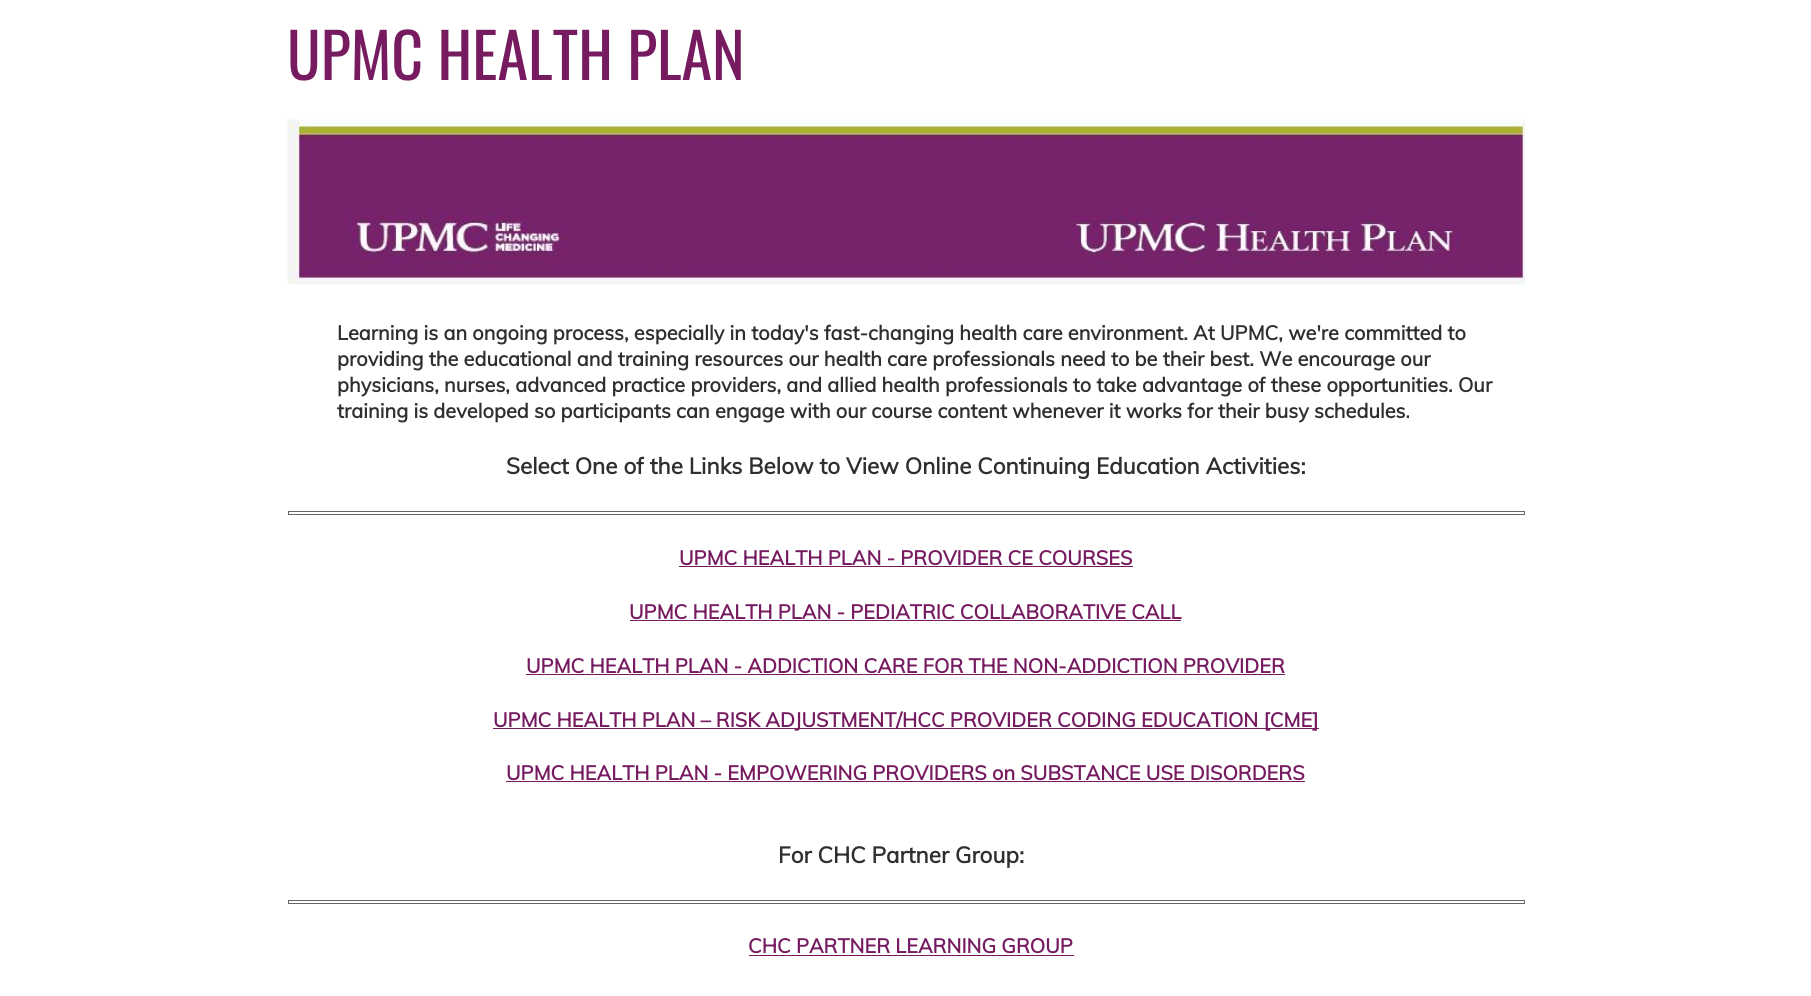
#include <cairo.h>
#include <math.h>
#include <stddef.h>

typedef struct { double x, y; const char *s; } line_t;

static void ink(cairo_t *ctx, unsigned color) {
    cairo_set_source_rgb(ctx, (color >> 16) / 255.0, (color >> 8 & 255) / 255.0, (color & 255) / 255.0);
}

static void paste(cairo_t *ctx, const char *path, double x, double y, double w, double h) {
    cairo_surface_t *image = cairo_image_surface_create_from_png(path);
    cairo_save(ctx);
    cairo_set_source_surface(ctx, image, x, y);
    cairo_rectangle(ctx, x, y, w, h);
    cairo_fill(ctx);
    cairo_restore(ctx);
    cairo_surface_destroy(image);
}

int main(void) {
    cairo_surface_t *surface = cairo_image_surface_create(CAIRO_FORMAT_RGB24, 1811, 996);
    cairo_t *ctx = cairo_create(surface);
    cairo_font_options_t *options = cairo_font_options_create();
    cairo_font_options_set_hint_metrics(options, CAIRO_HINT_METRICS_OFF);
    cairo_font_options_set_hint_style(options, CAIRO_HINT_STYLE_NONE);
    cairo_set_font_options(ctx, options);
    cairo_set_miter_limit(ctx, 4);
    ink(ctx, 0xFFFFFF);
    cairo_paint(ctx);
    cairo_select_font_face(ctx, "Oswald", CAIRO_FONT_SLANT_NORMAL, CAIRO_FONT_WEIGHT_NORMAL);
    cairo_set_font_size(ctx, 62);
    ink(ctx, 0x771B61);
    cairo_move_to(ctx, 287, 80);
    cairo_show_text(ctx, "UPMC HEALTH PLAN");
    paste(ctx, "media/1.png", 287, 119, 1238, 166);
    cairo_select_font_face(ctx, "Muli", CAIRO_FONT_SLANT_NORMAL, CAIRO_FONT_WEIGHT_BOLD);
    cairo_set_font_size(ctx, 20);
    ink(ctx, 0x2F2F2F);
    {
        static const line_t items[] = {
            {337, 340, "Learning is an ongoing process, especially in today's fast-changing health care environment. At UPMC, we're committed to"},
            {337, 366, "providing the educational and training resources our health care professionals need to be their best. We encourage our"},
            {337, 392, "physicians, nurses, advanced practice providers, and allied health professionals to take advantage of these opportunities. Our"},
            {337, 418, "training is developed so participants can engage with our course content whenever it works for their busy schedules."},
        };
        for (size_t i = 0; i < sizeof items / sizeof *items; i++) {
            cairo_move_to(ctx, items[i].x, items[i].y);
            cairo_show_text(ctx, items[i].s);
        }
    }
    cairo_set_font_size(ctx, 22.5);
    cairo_move_to(ctx, 506, 474);
    cairo_show_text(ctx, "Select One of the Links Below to View Online Continuing Education Activities:");
    cairo_rectangle(ctx, 288.5, 511.5, 1236, 3);
    ink(ctx, 0x666666);
    cairo_set_line_width(ctx, 1);
    cairo_stroke(ctx);
    cairo_set_font_size(ctx, 20);
    ink(ctx, 0x771B61);
    cairo_move_to(ctx, 679, 565);
    cairo_show_text(ctx, "UPMC HEALTH PLAN - PROVIDER CE COURSES");
    cairo_rectangle(ctx, 679, 566, 454, 1);
    cairo_fill(ctx);
    cairo_move_to(ctx, 629, 619);
    cairo_show_text(ctx, "UPMC HEALTH PLAN - PEDIATRIC COLLABORATIVE CALL");
    cairo_rectangle(ctx, 630, 620, 551, 1);
    cairo_fill(ctx);
    cairo_move_to(ctx, 526, 673);
    cairo_show_text(ctx, "UPMC HEALTH PLAN - ADDICTION CARE FOR THE NON-ADDICTION PROVIDER");
    cairo_rectangle(ctx, 526, 674, 759, 1);
    cairo_fill(ctx);
    cairo_rectangle(ctx, 493, 728, 826, 1);
    cairo_fill(ctx);
    cairo_move_to(ctx, 493, 727);
    cairo_show_text(ctx, "UPMC HEALTH PLAN – RISK ADJUSTMENT/HCC PROVIDER CODING EDUCATION [CME]");
    cairo_move_to(ctx, 506, 780);
    cairo_show_text(ctx, "UPMC HEALTH PLAN - EMPOWERING PROVIDERS on SUBSTANCE USE DISORDERS");
    cairo_rectangle(ctx, 506, 781, 799, 1);
    cairo_fill(ctx);
    cairo_set_font_size(ctx, 22.5);
    ink(ctx, 0x2F2F2F);
    cairo_move_to(ctx, 778, 863);
    cairo_show_text(ctx, "For CHC Partner Group:");
    cairo_rectangle(ctx, 288.5, 900.5, 1236, 3);
    ink(ctx, 0x666666);
    cairo_stroke(ctx);
    cairo_set_font_size(ctx, 20);
    ink(ctx, 0x771B61);
    cairo_move_to(ctx, 748, 953);
    cairo_show_text(ctx, "CHC PARTNER LEARNING GROUP");
    cairo_rectangle(ctx, 749, 955, 325, 1);
    cairo_fill(ctx);
    cairo_surface_write_to_png(surface, "image.png");
    cairo_font_options_destroy(options);
    cairo_destroy(ctx);
    cairo_surface_destroy(surface);
    return 0;
}
